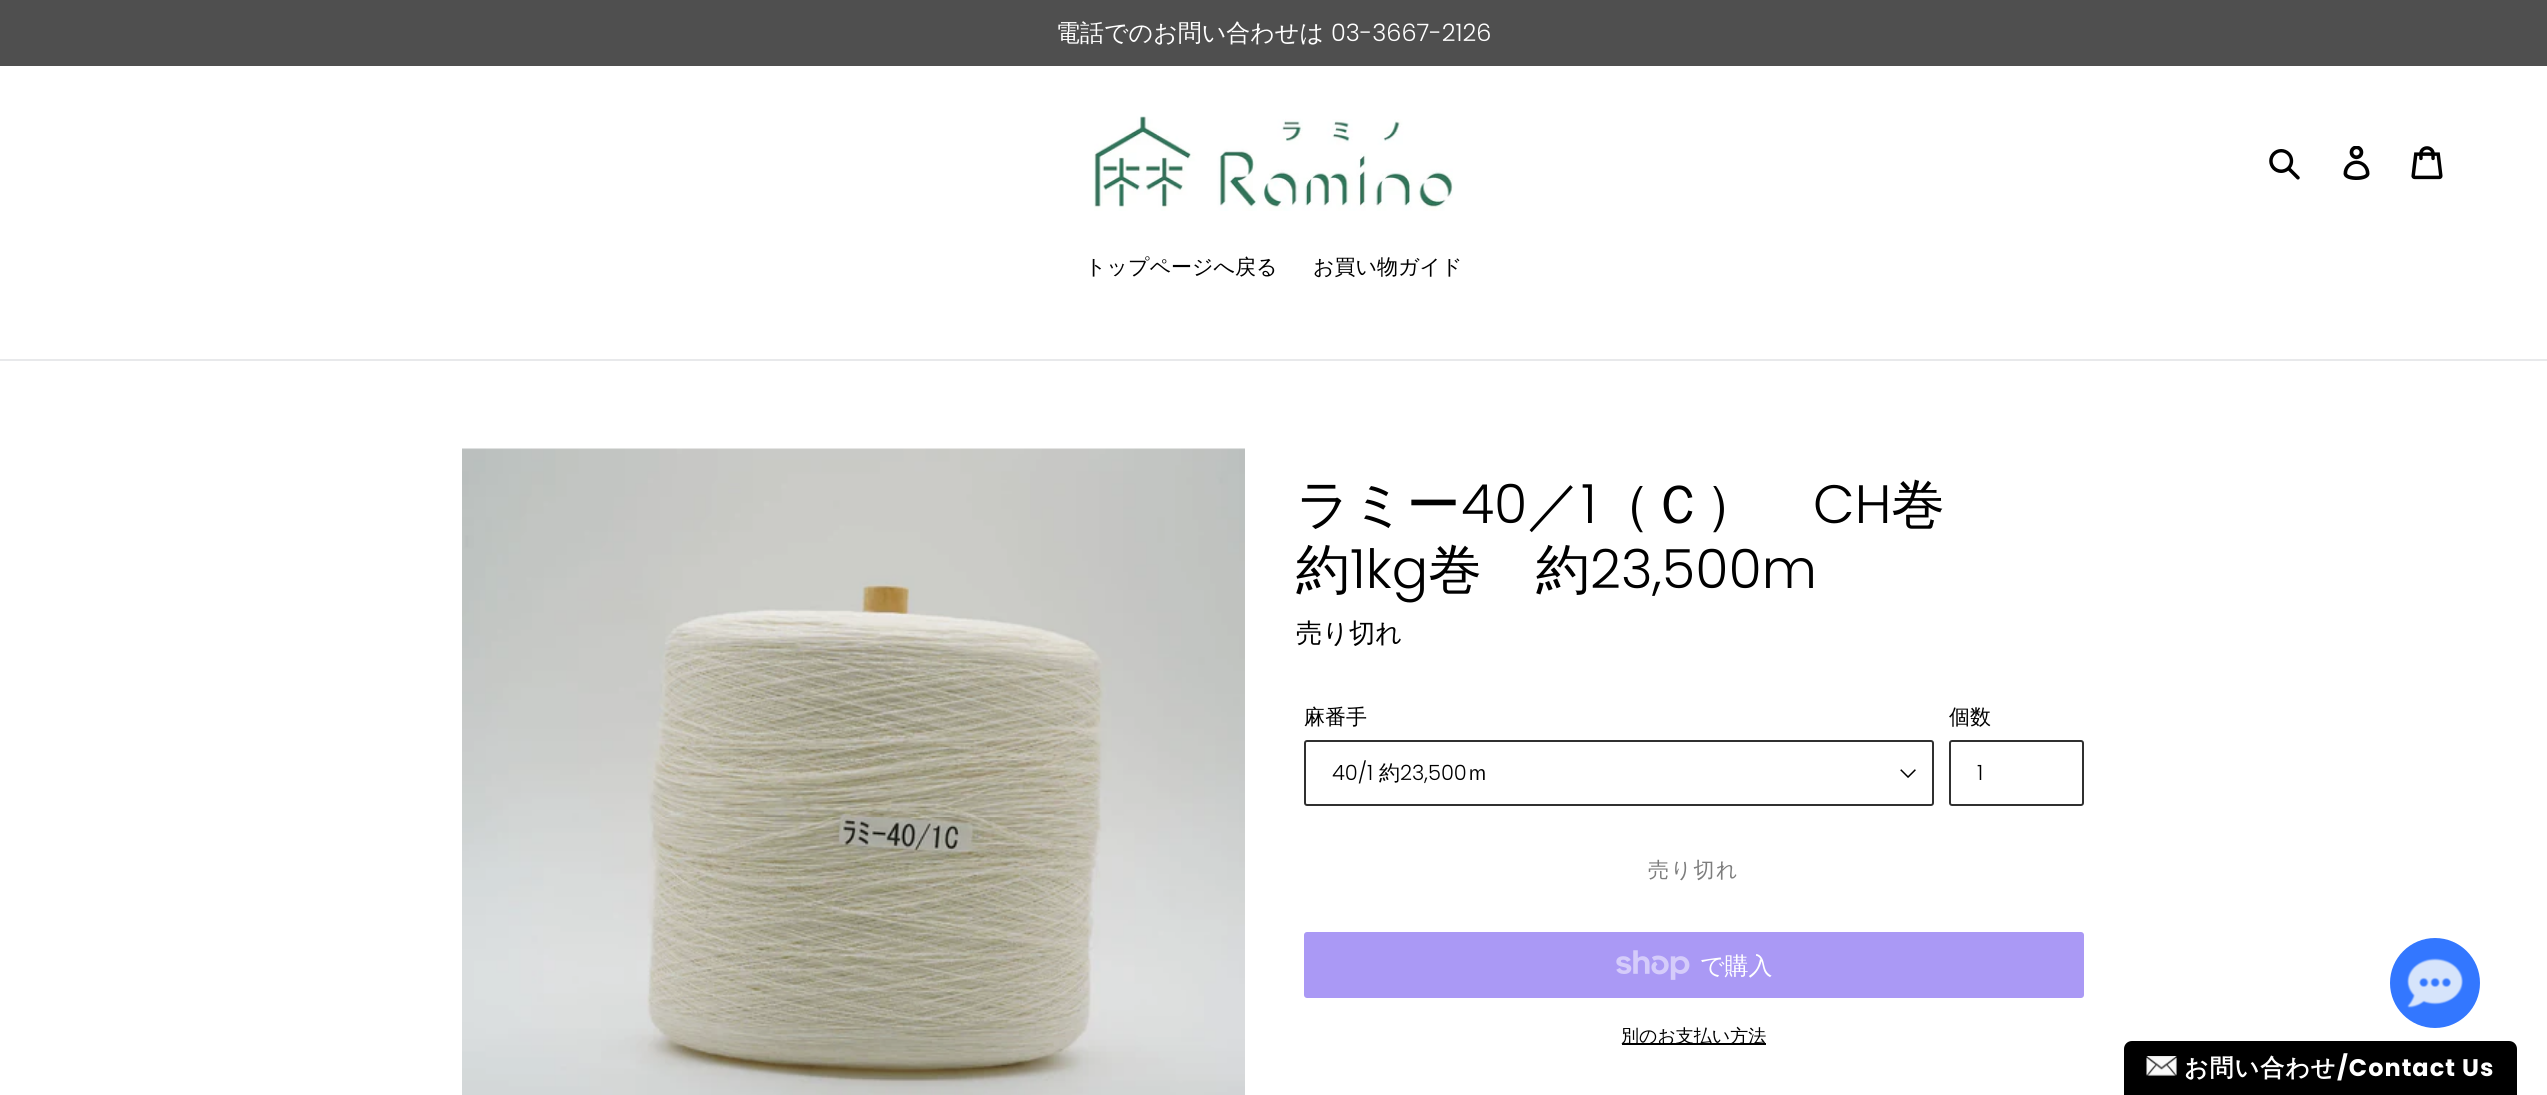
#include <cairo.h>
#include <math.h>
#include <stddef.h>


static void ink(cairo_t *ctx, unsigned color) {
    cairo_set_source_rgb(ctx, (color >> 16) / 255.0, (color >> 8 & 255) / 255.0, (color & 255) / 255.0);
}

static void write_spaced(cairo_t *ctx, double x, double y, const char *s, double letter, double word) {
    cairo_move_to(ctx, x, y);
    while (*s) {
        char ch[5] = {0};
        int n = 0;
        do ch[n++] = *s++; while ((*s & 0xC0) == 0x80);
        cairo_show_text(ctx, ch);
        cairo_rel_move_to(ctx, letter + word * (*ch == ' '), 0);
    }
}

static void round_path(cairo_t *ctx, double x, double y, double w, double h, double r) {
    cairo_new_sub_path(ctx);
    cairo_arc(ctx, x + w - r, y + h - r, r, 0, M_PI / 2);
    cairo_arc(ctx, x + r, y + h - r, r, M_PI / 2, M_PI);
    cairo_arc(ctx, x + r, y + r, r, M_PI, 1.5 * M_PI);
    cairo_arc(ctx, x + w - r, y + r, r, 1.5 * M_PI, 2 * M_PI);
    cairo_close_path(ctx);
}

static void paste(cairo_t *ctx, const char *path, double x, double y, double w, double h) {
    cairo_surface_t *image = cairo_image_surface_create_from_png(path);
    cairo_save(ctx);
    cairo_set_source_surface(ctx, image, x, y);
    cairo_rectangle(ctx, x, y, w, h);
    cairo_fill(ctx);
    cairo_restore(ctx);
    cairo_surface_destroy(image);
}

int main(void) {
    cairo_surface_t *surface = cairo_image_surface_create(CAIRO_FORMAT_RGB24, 2547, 1095);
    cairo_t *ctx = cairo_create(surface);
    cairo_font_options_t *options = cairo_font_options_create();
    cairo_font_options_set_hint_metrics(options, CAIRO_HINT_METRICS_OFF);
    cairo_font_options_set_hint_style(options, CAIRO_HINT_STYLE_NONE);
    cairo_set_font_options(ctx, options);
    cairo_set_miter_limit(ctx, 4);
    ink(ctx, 0xFFFFFF);
    cairo_paint(ctx);
    ink(ctx, 0x4F4F4F);
    cairo_rectangle(ctx, 0, 0, 2547, 66);
    cairo_fill(ctx);
    cairo_select_font_face(ctx, "WenQuanYi Zen Hei Medium", CAIRO_FONT_SLANT_NORMAL, CAIRO_FONT_WEIGHT_NORMAL);
    cairo_set_font_size(ctx, 24);
    ink(ctx, 0xFFFFFF);
    cairo_move_to(ctx, 1056, 41);
    cairo_show_text(ctx, "電話でのお問い合わせは");
    cairo_select_font_face(ctx, "Poppins Light", CAIRO_FONT_SLANT_NORMAL, CAIRO_FONT_WEIGHT_NORMAL);
    cairo_move_to(ctx, 1331, 41);
    cairo_show_text(ctx, "03-3667-2126");
    paste(ctx, "media/1.png", 1094, 116, 359, 95);
    paste(ctx, "media/2.png", 2269, 149, 31, 31);
    paste(ctx, "media/3.png", 2343, 146, 27, 34);
    paste(ctx, "media/4.png", 2411, 146, 32, 34);
    ink(ctx, 0xE8E9EB);
    cairo_rectangle(ctx, 0, 359, 2547, 2);
    cairo_fill(ctx);
    cairo_select_font_face(ctx, "WenQuanYi Zen Hei Medium", CAIRO_FONT_SLANT_NORMAL, CAIRO_FONT_WEIGHT_NORMAL);
    cairo_set_font_size(ctx, 21);
    ink(ctx, 0x000000);
    cairo_move_to(ctx, 1085, 274);
    cairo_show_text(ctx, "トップページへ戻る");
    cairo_move_to(ctx, 1313, 274);
    cairo_show_text(ctx, "お買い物ガイド");
    paste(ctx, "media/5.png", 462, 448, 783, 647);
    cairo_set_font_size(ctx, 54);
    cairo_move_to(ctx, 1296, 523);
    cairo_show_text(ctx, "ラミー");
    cairo_select_font_face(ctx, "Poppins Light", CAIRO_FONT_SLANT_NORMAL, CAIRO_FONT_WEIGHT_NORMAL);
    cairo_move_to(ctx, 1461, 523);
    cairo_show_text(ctx, "40");
    cairo_select_font_face(ctx, "WenQuanYi Zen Hei Medium", CAIRO_FONT_SLANT_NORMAL, CAIRO_FONT_WEIGHT_NORMAL);
    cairo_move_to(ctx, 1527, 523);
    cairo_show_text(ctx, "／");
    cairo_select_font_face(ctx, "Poppins Light", CAIRO_FONT_SLANT_NORMAL, CAIRO_FONT_WEIGHT_NORMAL);
    cairo_move_to(ctx, 1581, 523);
    cairo_show_text(ctx, "1");
    cairo_select_font_face(ctx, "WenQuanYi Zen Hei Medium", CAIRO_FONT_SLANT_NORMAL, CAIRO_FONT_WEIGHT_NORMAL);
    cairo_move_to(ctx, 1597, 523);
    cairo_show_text(ctx, "（Ｃ）");
    cairo_select_font_face(ctx, "Poppins Light", CAIRO_FONT_SLANT_NORMAL, CAIRO_FONT_WEIGHT_NORMAL);
    cairo_move_to(ctx, 1813, 523);
    cairo_show_text(ctx, "CH");
    cairo_select_font_face(ctx, "WenQuanYi Zen Hei Medium", CAIRO_FONT_SLANT_NORMAL, CAIRO_FONT_WEIGHT_NORMAL);
    cairo_move_to(ctx, 1891, 523);
    cairo_show_text(ctx, "巻");
    cairo_move_to(ctx, 1296, 588);
    cairo_show_text(ctx, "約");
    cairo_select_font_face(ctx, "Poppins Light", CAIRO_FONT_SLANT_NORMAL, CAIRO_FONT_WEIGHT_NORMAL);
    cairo_move_to(ctx, 1350, 588);
    cairo_show_text(ctx, "1kg");
    cairo_select_font_face(ctx, "WenQuanYi Zen Hei Medium", CAIRO_FONT_SLANT_NORMAL, CAIRO_FONT_WEIGHT_NORMAL);
    cairo_move_to(ctx, 1428, 588);
    cairo_show_text(ctx, "巻　約");
    cairo_select_font_face(ctx, "Poppins Light", CAIRO_FONT_SLANT_NORMAL, CAIRO_FONT_WEIGHT_NORMAL);
    cairo_move_to(ctx, 1590, 588);
    cairo_show_text(ctx, "23,500m");
    cairo_select_font_face(ctx, "WenQuanYi Zen Hei Medium", CAIRO_FONT_SLANT_NORMAL, CAIRO_FONT_WEIGHT_NORMAL);
    cairo_set_font_size(ctx, 26.25);
    cairo_move_to(ctx, 1296, 642);
    cairo_show_text(ctx, "売り切れ");
    cairo_set_font_size(ctx, 21);
    cairo_move_to(ctx, 1304, 724);
    cairo_show_text(ctx, "麻番手");
    paste(ctx, "media/6.png", 1900, 769, 16, 9);
    round_path(ctx, 1305, 741, 628, 64, 2);
    ink(ctx, 0x303030);
    cairo_stroke(ctx);
    cairo_select_font_face(ctx, "Poppins Light", CAIRO_FONT_SLANT_NORMAL, CAIRO_FONT_WEIGHT_NORMAL);
    ink(ctx, 0x000000);
    cairo_move_to(ctx, 1332, 780);
    cairo_show_text(ctx, "40/1");
    cairo_select_font_face(ctx, "WenQuanYi Zen Hei Medium", CAIRO_FONT_SLANT_NORMAL, CAIRO_FONT_WEIGHT_NORMAL);
    cairo_move_to(ctx, 1379, 780);
    cairo_show_text(ctx, "約");
    cairo_select_font_face(ctx, "Poppins Light", CAIRO_FONT_SLANT_NORMAL, CAIRO_FONT_WEIGHT_NORMAL);
    cairo_move_to(ctx, 1400, 780);
    cairo_show_text(ctx, "23,500");
    cairo_select_font_face(ctx, "WenQuanYi Zen Hei Medium", CAIRO_FONT_SLANT_NORMAL, CAIRO_FONT_WEIGHT_NORMAL);
    cairo_move_to(ctx, 1467, 780);
    cairo_show_text(ctx, "ｍ");
    cairo_move_to(ctx, 1949, 724);
    cairo_show_text(ctx, "個数");
    round_path(ctx, 1950, 741, 133, 64, 2);
    ink(ctx, 0x303030);
    cairo_stroke(ctx);
    cairo_select_font_face(ctx, "Poppins Light", CAIRO_FONT_SLANT_NORMAL, CAIRO_FONT_WEIGHT_NORMAL);
    ink(ctx, 0x000000);
    cairo_move_to(ctx, 1977, 780);
    cairo_show_text(ctx, "1");
    cairo_select_font_face(ctx, "WenQuanYi Zen Hei Medium", CAIRO_FONT_SLANT_NORMAL, CAIRO_FONT_WEIGHT_NORMAL);
    ink(ctx, 0x7D7D7D);
    write_spaced(ctx, 1648, 877, "売り切れ", 1.5, 0);
    ink(ctx, 0xAA99F5);
    round_path(ctx, 1304, 932, 780, 66, 3);
    cairo_fill(ctx);
    paste(ctx, "media/7.png", 1616, 950, 74, 30);
    cairo_set_font_size(ctx, 24);
    ink(ctx, 0xFFFFFF);
    cairo_move_to(ctx, 1700, 974);
    cairo_show_text(ctx, "で購入");
    ink(ctx, 0x000000);
    cairo_rectangle(ctx, 1622, 1043, 144, 2);
    cairo_fill(ctx);
    cairo_set_font_size(ctx, 18);
    cairo_move_to(ctx, 1621, 1042);
    cairo_show_text(ctx, "別のお支払い方法");
    ink(ctx, 0x3377FF);
    cairo_new_path(ctx);
    cairo_arc(ctx, 2435, 983, 45, 0, 2 * M_PI);
    cairo_fill(ctx);
    paste(ctx, "media/8.png", 2407, 958, 56, 50);
    ink(ctx, 0x000000);
    cairo_new_path(ctx);
    cairo_move_to(ctx, 2132, 1041);
    cairo_line_to(ctx, 2509, 1041);
    cairo_curve_to(ctx, 2513.5, 1041, 2517, 1044.5, 2517, 1049);
    cairo_line_to(ctx, 2517, 1095);
    cairo_line_to(ctx, 2124, 1095);
    cairo_line_to(ctx, 2124, 1049);
    cairo_curve_to(ctx, 2124, 1044.5, 2127.5, 1041, 2132, 1041);
    cairo_close_path(ctx);
    cairo_fill(ctx);
    paste(ctx, "media/9.png", 2146, 1056, 31, 20);
    cairo_select_font_face(ctx, "WenQuanYi Zen Hei", CAIRO_FONT_SLANT_NORMAL, CAIRO_FONT_WEIGHT_BOLD);
    cairo_set_font_size(ctx, 24);
    ink(ctx, 0xFFFFFF);
    write_spaced(ctx, 2184, 1076, "お問い合わせ", 1, 0);
    cairo_select_font_face(ctx, "Poppins", CAIRO_FONT_SLANT_NORMAL, CAIRO_FONT_WEIGHT_BOLD);
    write_spaced(ctx, 2337, 1076, "/Contact Us", 1, 0);
    cairo_surface_write_to_png(surface, "image.png");
    cairo_font_options_destroy(options);
    cairo_destroy(ctx);
    cairo_surface_destroy(surface);
    return 0;
}
